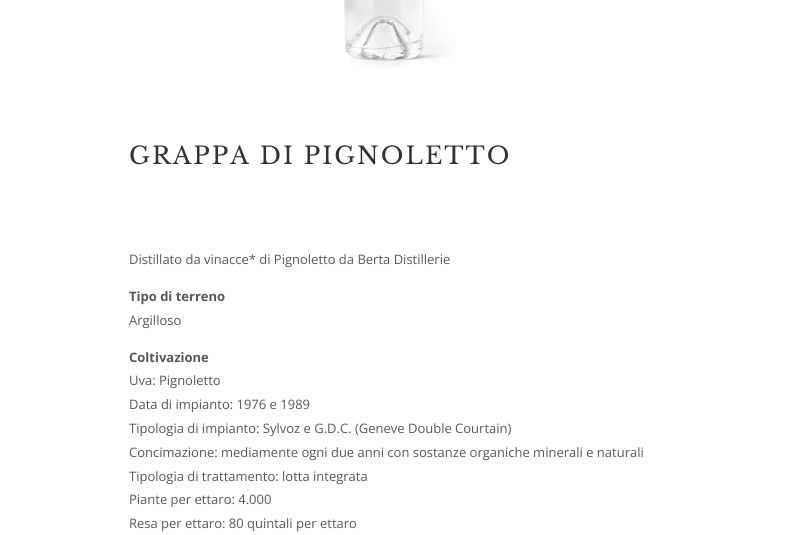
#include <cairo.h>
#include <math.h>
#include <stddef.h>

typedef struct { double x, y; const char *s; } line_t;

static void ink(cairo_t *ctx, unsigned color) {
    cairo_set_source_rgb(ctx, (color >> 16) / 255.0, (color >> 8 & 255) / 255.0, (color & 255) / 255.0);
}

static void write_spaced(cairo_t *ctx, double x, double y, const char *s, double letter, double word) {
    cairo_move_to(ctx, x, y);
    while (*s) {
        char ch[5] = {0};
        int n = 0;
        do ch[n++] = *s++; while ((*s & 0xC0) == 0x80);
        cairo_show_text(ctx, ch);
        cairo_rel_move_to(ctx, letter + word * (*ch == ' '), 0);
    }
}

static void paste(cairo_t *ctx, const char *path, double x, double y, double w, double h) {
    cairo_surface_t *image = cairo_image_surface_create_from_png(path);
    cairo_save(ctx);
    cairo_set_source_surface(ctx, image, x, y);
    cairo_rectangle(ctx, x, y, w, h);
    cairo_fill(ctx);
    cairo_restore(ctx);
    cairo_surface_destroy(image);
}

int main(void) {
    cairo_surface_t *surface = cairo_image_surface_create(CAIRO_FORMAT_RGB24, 790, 535);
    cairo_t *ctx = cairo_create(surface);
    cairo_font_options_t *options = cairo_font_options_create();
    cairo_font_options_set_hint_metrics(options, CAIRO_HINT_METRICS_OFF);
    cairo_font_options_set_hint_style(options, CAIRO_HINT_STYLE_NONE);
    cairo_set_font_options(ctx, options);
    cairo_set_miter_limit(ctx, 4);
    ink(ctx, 0xFFFFFF);
    cairo_paint(ctx);
    paste(ctx, "media/1.png", 344, 0, 112, 68);
    cairo_select_font_face(ctx, "Libre Baskerville", CAIRO_FONT_SLANT_NORMAL, CAIRO_FONT_WEIGHT_NORMAL);
    cairo_set_font_size(ctx, 24);
    ink(ctx, 0x333333);
    write_spaced(ctx, 129, 164, "GRAPPA DI PIGNOLETTO", 2, 0);
    cairo_select_font_face(ctx, "Open Sans", CAIRO_FONT_SLANT_NORMAL, CAIRO_FONT_WEIGHT_NORMAL);
    cairo_set_font_size(ctx, 13);
    ink(ctx, 0x595959);
    cairo_move_to(ctx, 129, 264);
    cairo_show_text(ctx, "Distillato da vinacce* di Pignoletto da Berta Distillerie");
    cairo_select_font_face(ctx, "Open Sans", CAIRO_FONT_SLANT_NORMAL, CAIRO_FONT_WEIGHT_BOLD);
    cairo_move_to(ctx, 129, 301);
    cairo_show_text(ctx, "Tipo di terreno");
    cairo_select_font_face(ctx, "Open Sans", CAIRO_FONT_SLANT_NORMAL, CAIRO_FONT_WEIGHT_NORMAL);
    cairo_move_to(ctx, 129, 325);
    cairo_show_text(ctx, "Argilloso");
    cairo_select_font_face(ctx, "Open Sans", CAIRO_FONT_SLANT_NORMAL, CAIRO_FONT_WEIGHT_BOLD);
    cairo_move_to(ctx, 129, 362);
    cairo_show_text(ctx, "Coltivazione");
    cairo_select_font_face(ctx, "Open Sans", CAIRO_FONT_SLANT_NORMAL, CAIRO_FONT_WEIGHT_NORMAL);
    {
        static const line_t items[] = {
            {129, 385, "Uva: Pignoletto"},
            {129, 409, "Data di impianto: 1976 e 1989"},
            {129, 433, "Tipologia di impianto: Sylvoz e G.D.C. (Geneve Double Courtain)"},
            {129, 457, "Concimazione: mediamente ogni due anni con sostanze organiche minerali e naturali"},
            {129, 481, "Tipologia di trattamento: lotta integrata"},
            {129, 504, "Piante per ettaro: 4.000"},
            {129, 528, "Resa per ettaro: 80 quintali per ettaro"},
        };
        for (size_t i = 0; i < sizeof items / sizeof *items; i++) {
            cairo_move_to(ctx, items[i].x, items[i].y);
            cairo_show_text(ctx, items[i].s);
        }
    }
    cairo_surface_write_to_png(surface, "image.png");
    cairo_font_options_destroy(options);
    cairo_destroy(ctx);
    cairo_surface_destroy(surface);
    return 0;
}
